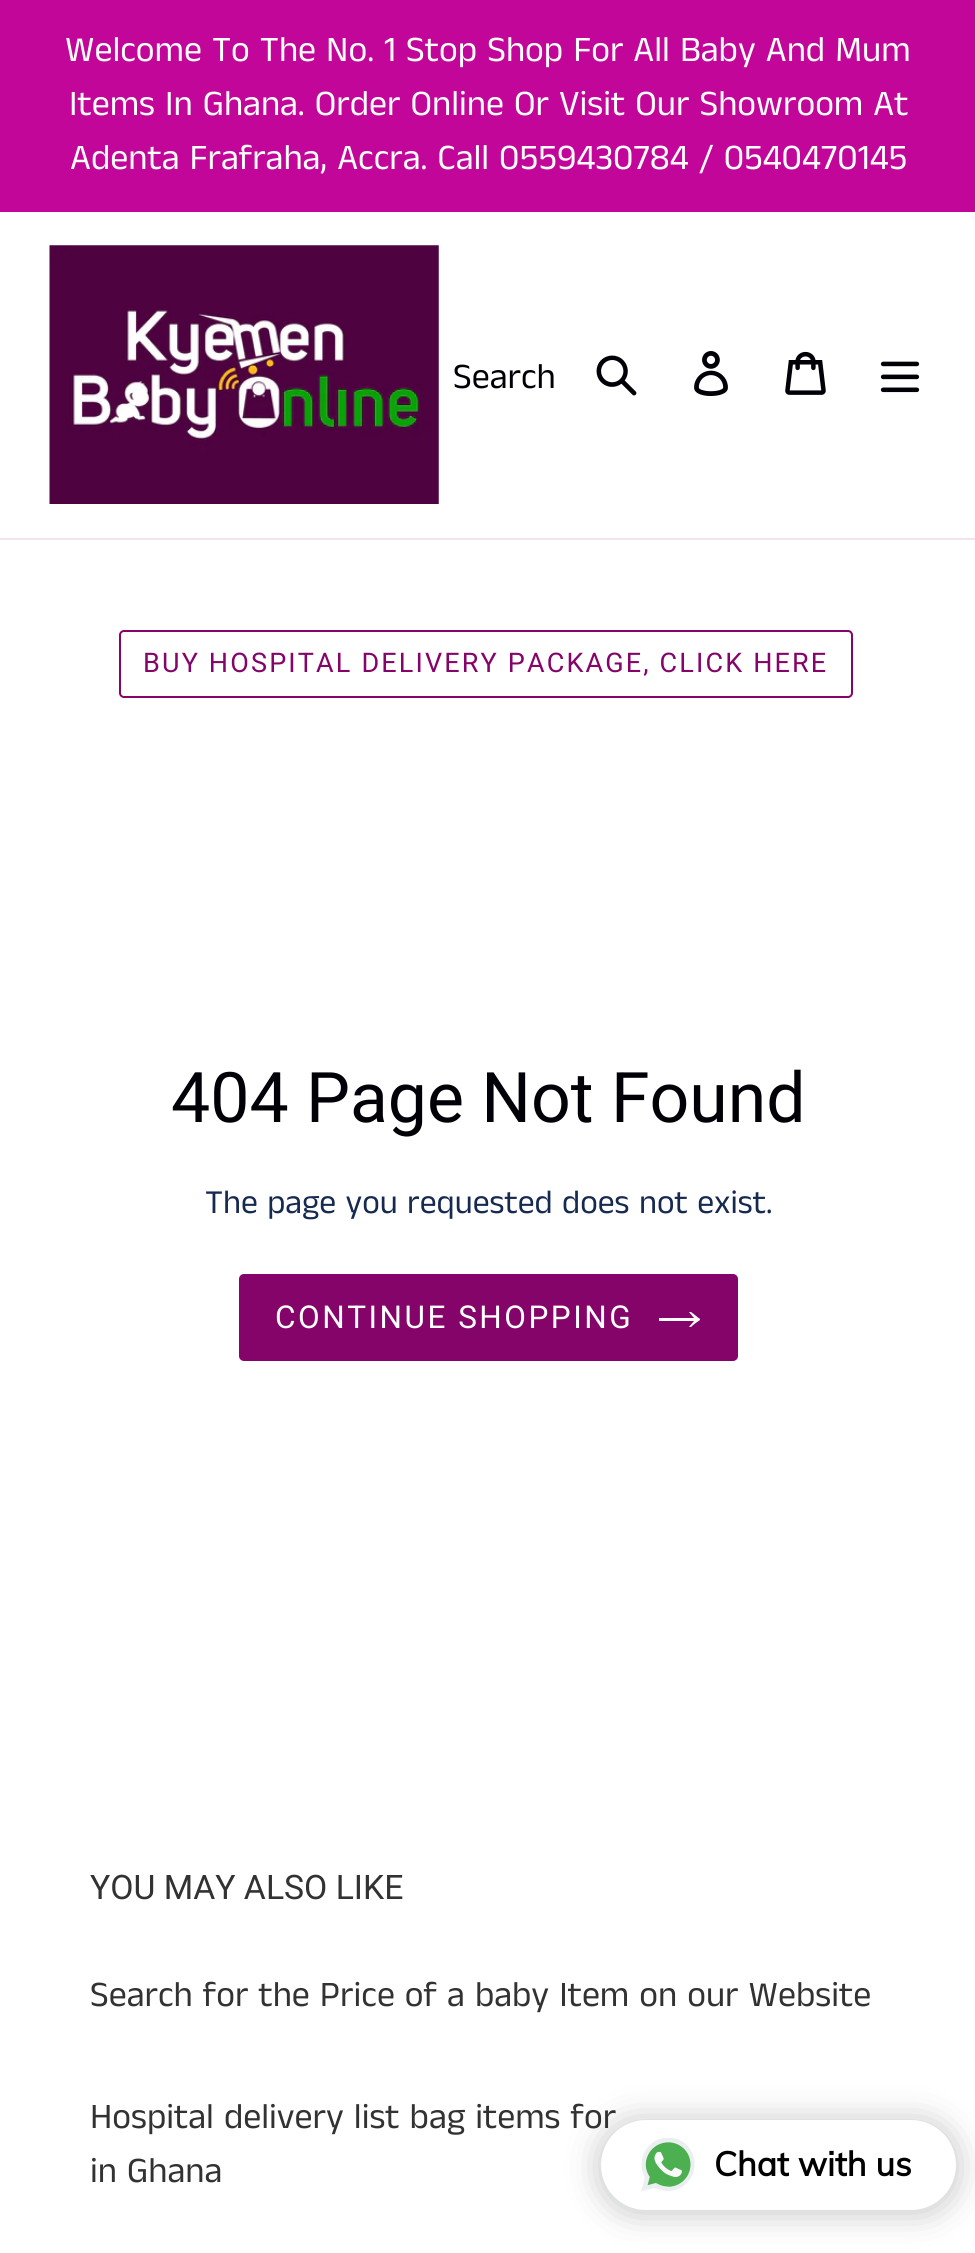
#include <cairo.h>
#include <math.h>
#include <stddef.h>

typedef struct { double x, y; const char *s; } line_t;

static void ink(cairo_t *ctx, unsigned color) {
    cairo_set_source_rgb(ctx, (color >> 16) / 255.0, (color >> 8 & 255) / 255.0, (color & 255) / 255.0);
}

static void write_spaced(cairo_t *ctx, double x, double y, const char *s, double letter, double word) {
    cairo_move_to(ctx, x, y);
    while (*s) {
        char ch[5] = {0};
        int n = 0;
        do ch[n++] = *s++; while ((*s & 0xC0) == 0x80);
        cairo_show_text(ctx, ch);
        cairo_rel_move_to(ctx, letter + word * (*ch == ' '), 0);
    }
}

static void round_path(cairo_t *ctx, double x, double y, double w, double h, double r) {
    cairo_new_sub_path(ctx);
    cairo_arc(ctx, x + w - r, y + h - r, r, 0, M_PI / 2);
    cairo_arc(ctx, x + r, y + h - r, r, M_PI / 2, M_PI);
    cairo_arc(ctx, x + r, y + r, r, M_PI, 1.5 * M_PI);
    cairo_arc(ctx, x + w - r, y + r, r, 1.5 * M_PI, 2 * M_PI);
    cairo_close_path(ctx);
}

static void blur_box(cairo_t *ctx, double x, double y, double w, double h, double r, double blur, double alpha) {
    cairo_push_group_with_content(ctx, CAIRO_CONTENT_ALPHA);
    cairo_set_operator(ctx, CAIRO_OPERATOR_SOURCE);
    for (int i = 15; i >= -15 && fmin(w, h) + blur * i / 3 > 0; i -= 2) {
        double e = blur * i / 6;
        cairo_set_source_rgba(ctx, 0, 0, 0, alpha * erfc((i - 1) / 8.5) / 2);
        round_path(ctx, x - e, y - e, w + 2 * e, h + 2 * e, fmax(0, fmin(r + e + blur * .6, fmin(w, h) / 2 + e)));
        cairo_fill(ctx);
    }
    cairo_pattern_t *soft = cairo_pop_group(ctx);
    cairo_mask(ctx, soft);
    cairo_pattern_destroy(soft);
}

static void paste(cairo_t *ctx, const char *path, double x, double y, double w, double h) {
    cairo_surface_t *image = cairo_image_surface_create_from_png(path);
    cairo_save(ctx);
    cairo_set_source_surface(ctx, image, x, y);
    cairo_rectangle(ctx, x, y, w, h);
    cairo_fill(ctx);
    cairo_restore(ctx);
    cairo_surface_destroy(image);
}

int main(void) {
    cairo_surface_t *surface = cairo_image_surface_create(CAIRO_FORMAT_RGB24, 975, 2253);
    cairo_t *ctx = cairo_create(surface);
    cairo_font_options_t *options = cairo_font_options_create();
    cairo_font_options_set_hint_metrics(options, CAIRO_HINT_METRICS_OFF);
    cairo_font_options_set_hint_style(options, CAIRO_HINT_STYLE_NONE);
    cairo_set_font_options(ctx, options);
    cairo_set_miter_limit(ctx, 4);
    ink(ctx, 0xFFFFFF);
    cairo_paint(ctx);
    ink(ctx, 0xC3069A);
    cairo_rectangle(ctx, 0, 0, 975, 212);
    cairo_fill(ctx);
    cairo_select_font_face(ctx, "Anek Tamil", CAIRO_FONT_SLANT_NORMAL, CAIRO_FONT_WEIGHT_NORMAL);
    cairo_set_font_size(ctx, 36);
    ink(ctx, 0xFFFFFF);
    {
        static const line_t items[] = {
            {65, 61, "Welcome To The No. 1 Stop Shop For All Baby And Mum"},
            {69, 115, "Items In Ghana. Order Online Or Visit Our Showroom At"},
            {70, 169, "Adenta Frafraha, Accra. Call 0559430784 / 0540470145"},
        };
        for (size_t i = 0; i < sizeof items / sizeof *items; i++) {
            cairo_move_to(ctx, items[i].x, items[i].y);
            cairo_show_text(ctx, items[i].s);
        }
    }
    ink(ctx, 0xF2E3EF);
    cairo_rectangle(ctx, 0, 538, 975, 2);
    cairo_fill(ctx);
    paste(ctx, "media/1.png", 49, 245, 390, 259);
    ink(ctx, 0x010007);
    cairo_move_to(ctx, 453, 388);
    cairo_show_text(ctx, "Search");
    paste(ctx, "media/2.png", 596, 355, 41, 41);
    paste(ctx, "media/3.png", 694, 351, 34, 45);
    paste(ctx, "media/4.png", 785, 351, 41, 44);
    paste(ctx, "media/5.png", 880, 361, 40, 32);
    round_path(ctx, 120, 631, 732, 66, 4);
    ink(ctx, 0x850469);
    cairo_stroke(ctx);
    cairo_select_font_face(ctx, "Roboto", CAIRO_FONT_SLANT_NORMAL, CAIRO_FONT_WEIGHT_NORMAL);
    cairo_set_font_size(ctx, 27);
    write_spaced(ctx, 143, 672, "BUY HOSPITAL DELIVERY PACKAGE, CLICK HERE", 2.15, 0);
    cairo_set_font_size(ctx, 69.75);
    ink(ctx, 0x010007);
    cairo_move_to(ctx, 171, 1122);
    cairo_show_text(ctx, "404 Page Not Found");
    cairo_select_font_face(ctx, "Anek Tamil", CAIRO_FONT_SLANT_NORMAL, CAIRO_FONT_WEIGHT_NORMAL);
    cairo_set_font_size(ctx, 33.75);
    ink(ctx, 0x162950);
    cairo_move_to(ctx, 205, 1213);
    cairo_show_text(ctx, "The page you requested does not exist.");
    ink(ctx, 0x850469);
    round_path(ctx, 239, 1274, 499, 87, 5);
    cairo_fill(ctx);
    cairo_select_font_face(ctx, "Roboto", CAIRO_FONT_SLANT_NORMAL, CAIRO_FONT_WEIGHT_NORMAL);
    cairo_set_font_size(ctx, 31.5);
    ink(ctx, 0xFFFFFF);
    write_spaced(ctx, 275, 1328, "CONTINUE SHOPPING", 2.5, 0);
    cairo_set_fill_rule(ctx, CAIRO_FILL_RULE_EVEN_ODD);
    cairo_new_path(ctx);
    cairo_move_to(ctx, 691, 1312);
    cairo_curve_to(ctx, 694, 1314, 697, 1317, 700, 1319);
    cairo_line_to(ctx, 700, 1320);
    cairo_curve_to(ctx, 697, 1322, 694, 1324, 691, 1327);
    cairo_line_to(ctx, 689, 1327);
    cairo_line_to(ctx, 694, 1321);
    cairo_line_to(ctx, 659, 1321);
    cairo_line_to(ctx, 659, 1318);
    cairo_line_to(ctx, 694, 1318);
    cairo_line_to(ctx, 689, 1312);
    cairo_close_path(ctx);
    cairo_fill(ctx);
    cairo_set_font_size(ctx, 33.75);
    ink(ctx, 0x333232);
    cairo_move_to(ctx, 90, 1899);
    cairo_show_text(ctx, "YOU MAY ALSO LIKE");
    cairo_select_font_face(ctx, "Anek Tamil", CAIRO_FONT_SLANT_NORMAL, CAIRO_FONT_WEIGHT_NORMAL);
    cairo_set_font_size(ctx, 36);
    {
        static const line_t items[] = {
            {90, 2006, "Search for the Price of a baby Item on our Website"},
            {90, 2128, "Hospital delivery list bag items for"},
            {90, 2182, "in Ghana"},
        };
        for (size_t i = 0; i < sizeof items / sizeof *items; i++) {
            cairo_move_to(ctx, items[i].x, items[i].y);
            cairo_show_text(ctx, items[i].s);
        }
    }
    ink(ctx, 0x202124);
    blur_box(ctx, 601, 2122, 355, 90, 45, 17, 0.28);
    ink(ctx, 0xFFFFFF);
    round_path(ctx, 601, 2120, 355, 90, 45);
    cairo_fill(ctx);
    paste(ctx, "media/6.png", 641, 2138, 54, 54);
    cairo_select_font_face(ctx, "Muli", CAIRO_FONT_SLANT_NORMAL, CAIRO_FONT_WEIGHT_BOLD);
    cairo_set_font_size(ctx, 33.75);
    ink(ctx, 0x000000);
    cairo_move_to(ctx, 714, 2176);
    cairo_show_text(ctx, "Chat with us");
    cairo_surface_write_to_png(surface, "image.png");
    cairo_font_options_destroy(options);
    cairo_destroy(ctx);
    cairo_surface_destroy(surface);
    return 0;
}
